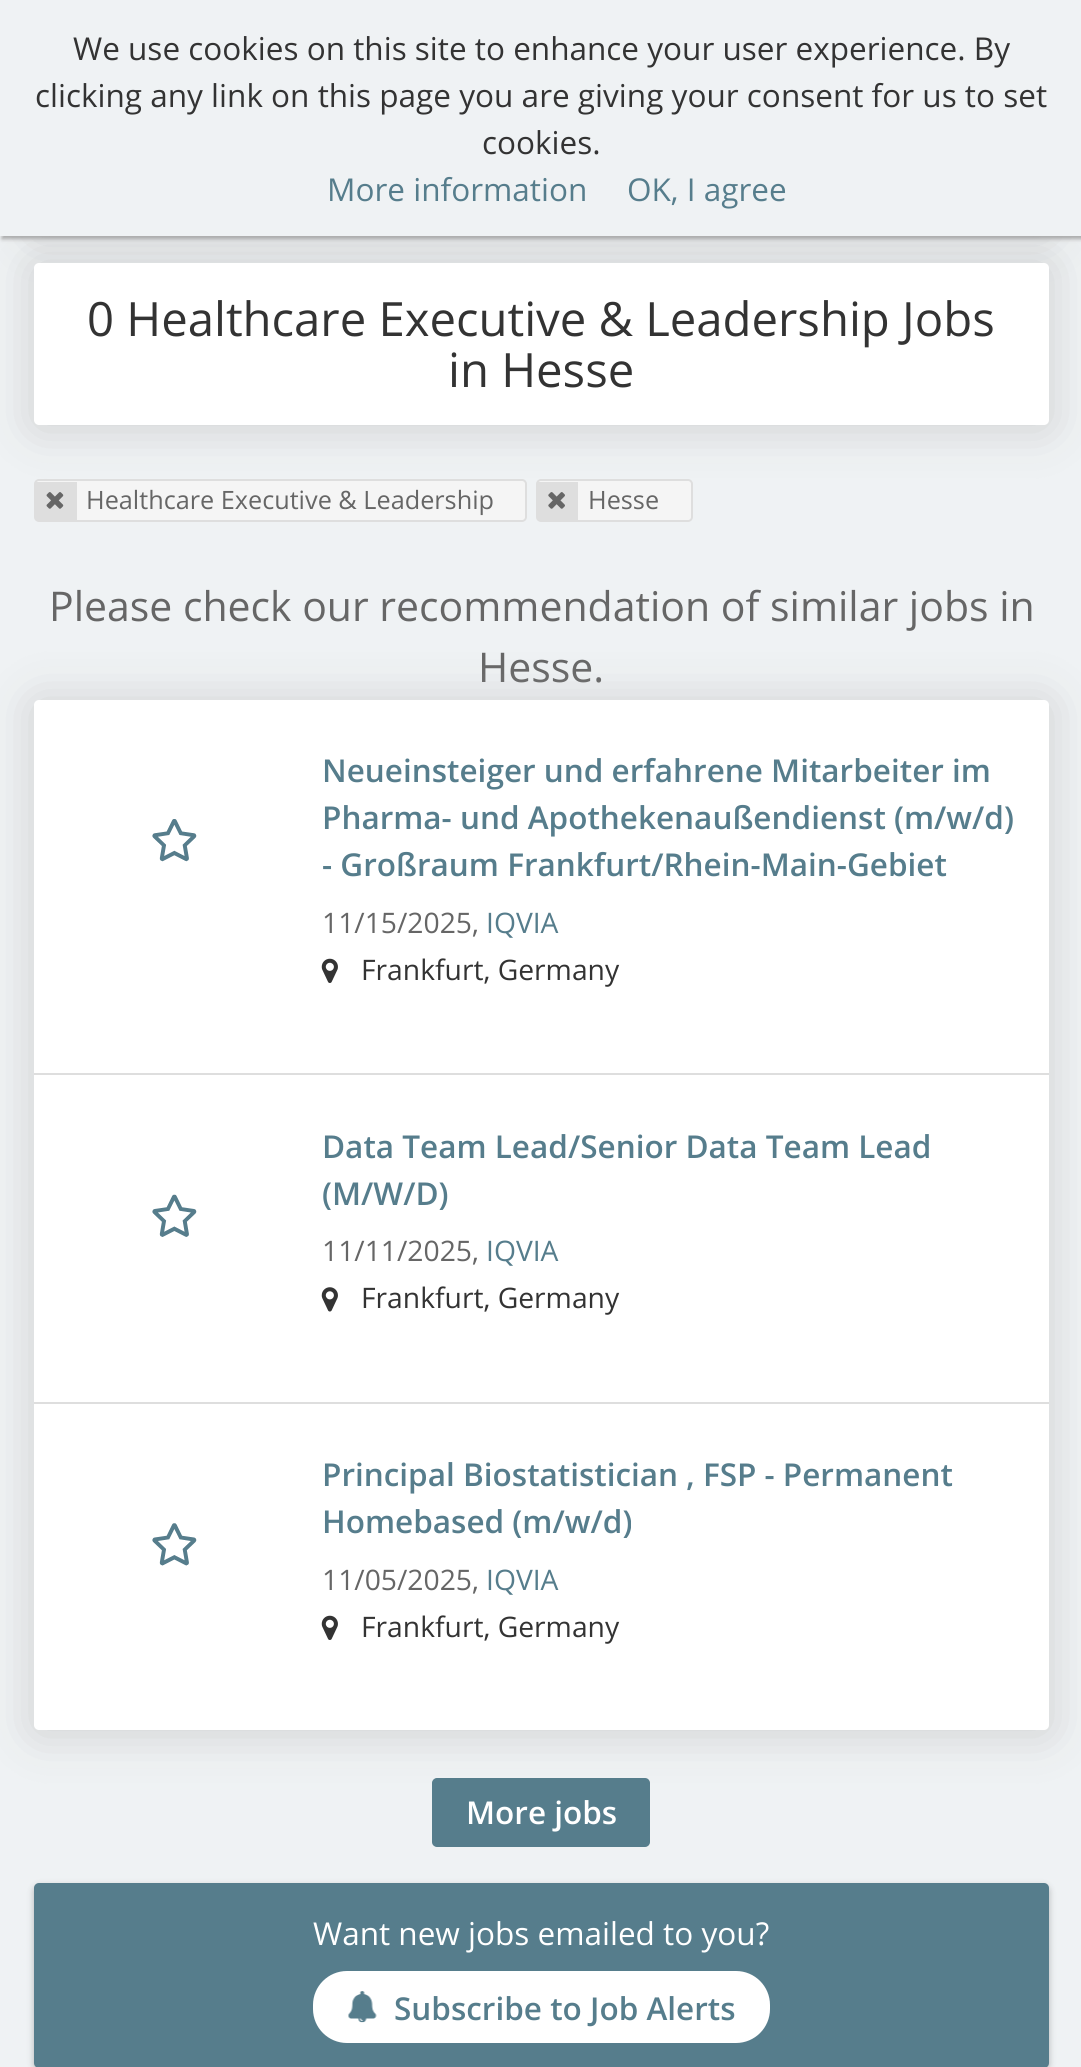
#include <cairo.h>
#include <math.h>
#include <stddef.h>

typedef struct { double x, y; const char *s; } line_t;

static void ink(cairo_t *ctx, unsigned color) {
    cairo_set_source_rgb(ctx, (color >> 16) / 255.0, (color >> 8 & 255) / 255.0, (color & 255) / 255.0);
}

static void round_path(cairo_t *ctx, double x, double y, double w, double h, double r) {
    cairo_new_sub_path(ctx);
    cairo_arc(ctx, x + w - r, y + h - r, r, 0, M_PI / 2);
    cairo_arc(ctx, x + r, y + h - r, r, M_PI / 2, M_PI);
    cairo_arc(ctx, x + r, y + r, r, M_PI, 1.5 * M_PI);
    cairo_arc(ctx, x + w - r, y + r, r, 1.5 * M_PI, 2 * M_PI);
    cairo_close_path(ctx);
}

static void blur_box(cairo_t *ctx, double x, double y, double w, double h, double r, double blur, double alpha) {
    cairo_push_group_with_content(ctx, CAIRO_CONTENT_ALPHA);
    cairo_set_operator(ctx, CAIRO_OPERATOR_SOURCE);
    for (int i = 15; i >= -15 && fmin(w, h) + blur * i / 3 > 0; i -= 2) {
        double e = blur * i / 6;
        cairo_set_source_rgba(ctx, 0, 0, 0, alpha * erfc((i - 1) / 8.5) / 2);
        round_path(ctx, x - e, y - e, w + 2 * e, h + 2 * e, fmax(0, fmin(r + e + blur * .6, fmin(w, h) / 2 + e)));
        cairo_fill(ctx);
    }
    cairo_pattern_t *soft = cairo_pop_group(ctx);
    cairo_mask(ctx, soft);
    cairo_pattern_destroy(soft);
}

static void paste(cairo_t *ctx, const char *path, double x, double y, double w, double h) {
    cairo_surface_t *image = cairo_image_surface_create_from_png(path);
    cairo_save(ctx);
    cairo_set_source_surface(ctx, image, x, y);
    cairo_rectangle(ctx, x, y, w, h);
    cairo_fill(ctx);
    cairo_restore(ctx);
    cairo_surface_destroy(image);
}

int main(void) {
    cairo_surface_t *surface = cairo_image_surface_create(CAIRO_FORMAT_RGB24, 1081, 2067);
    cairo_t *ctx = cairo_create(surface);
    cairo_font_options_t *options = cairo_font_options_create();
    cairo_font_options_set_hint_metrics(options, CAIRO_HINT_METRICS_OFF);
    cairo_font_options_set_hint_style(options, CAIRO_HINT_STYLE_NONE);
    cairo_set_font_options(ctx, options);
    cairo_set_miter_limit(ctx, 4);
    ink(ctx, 0xEFF2F4);
    cairo_paint(ctx);
    ink(ctx, 0xA8A8A8);
    blur_box(ctx, 2, 2, 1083, 237, 0, 2, 1);
    ink(ctx, 0xABABAB);
    blur_box(ctx, 32, -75, 1019, 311, 7, 22.5, 0.45);
    blur_box(ctx, 32, 263, 1019, 167, 7, 22.5, 0.45);
    ink(ctx, 0xEFF2F4);
    cairo_rectangle(ctx, 0, 0, 1081, 236);
    cairo_fill(ctx);
    cairo_select_font_face(ctx, "Open Sans", CAIRO_FONT_SLANT_NORMAL, CAIRO_FONT_WEIGHT_NORMAL);
    cairo_set_font_size(ctx, 31.5);
    ink(ctx, 0x333333);
    {
        static const line_t items[] = {
            {73, 60, "We use cookies on this site to enhance your user experience. By"},
            {35, 107, "clicking any link on this page you are giving your consent for us to set"},
            {482, 154, "cookies."},
        };
        for (size_t i = 0; i < sizeof items / sizeof *items; i++) {
            cairo_move_to(ctx, items[i].x, items[i].y);
            cairo_show_text(ctx, items[i].s);
        }
    }
    ink(ctx, 0x567D8C);
    cairo_move_to(ctx, 327, 201);
    cairo_show_text(ctx, "More information");
    cairo_move_to(ctx, 627, 201);
    cairo_show_text(ctx, "OK, I agree");
    ink(ctx, 0xFFFFFF);
    round_path(ctx, 34, 263, 1015, 162, 5);
    cairo_fill(ctx);
    cairo_set_font_size(ctx, 47.25);
    ink(ctx, 0x333333);
    cairo_move_to(ctx, 87, 336);
    cairo_show_text(ctx, "0 Healthcare Executive & Leadership Jobs");
    cairo_move_to(ctx, 448, 387);
    cairo_show_text(ctx, "in Hesse");
    ink(ctx, 0xF5F5F5);
    round_path(ctx, 35, 480, 491, 41, 4);
    cairo_fill_preserve(ctx);
    ink(ctx, 0xDEDEDE);
    cairo_stroke(ctx);
    cairo_rectangle(ctx, 36, 482, 41, 38);
    cairo_fill(ctx);
    paste(ctx, "media/1.png", 46, 492, 18, 17);
    cairo_set_font_size(ctx, 25.25);
    ink(ctx, 0x666666);
    cairo_move_to(ctx, 86, 509);
    cairo_show_text(ctx, "Healthcare Executive & Leadership");
    ink(ctx, 0xF5F5F5);
    round_path(ctx, 537, 480, 155, 41, 4);
    cairo_fill_preserve(ctx);
    ink(ctx, 0xDEDEDE);
    cairo_stroke(ctx);
    cairo_rectangle(ctx, 538, 482, 40, 38);
    cairo_fill(ctx);
    paste(ctx, "media/2.png", 548, 492, 17, 17);
    ink(ctx, 0x666666);
    cairo_move_to(ctx, 588, 509);
    cairo_show_text(ctx, "Hesse");
    cairo_set_font_size(ctx, 40.95);
    cairo_move_to(ctx, 49, 621);
    cairo_show_text(ctx, "Please check our recommendation of similar jobs in");
    cairo_move_to(ctx, 478, 682);
    cairo_show_text(ctx, "Hesse.");
    ink(ctx, 0xABABAB);
    blur_box(ctx, 32, 700, 1019, 1035, 7, 22.5, 0.45);
    ink(ctx, 0xFFFFFF);
    round_path(ctx, 34, 700, 1015, 1030, 5);
    cairo_fill(ctx);
    paste(ctx, "media/3.png", 152, 819, 45, 43);
    cairo_select_font_face(ctx, "Open Sans SemiBold", CAIRO_FONT_SLANT_NORMAL, CAIRO_FONT_WEIGHT_NORMAL);
    cairo_set_font_size(ctx, 31.5);
    ink(ctx, 0x567D8C);
    {
        static const line_t items[] = {
            {322, 782, "Neueinsteiger und erfahrene Mitarbeiter im"},
            {322, 829, "Pharma- und Apothekenaußendienst (m/w/d)"},
            {322, 876, "- Großraum Frankfurt/Rhein-Main-Gebiet"},
        };
        for (size_t i = 0; i < sizeof items / sizeof *items; i++) {
            cairo_move_to(ctx, items[i].x, items[i].y);
            cairo_show_text(ctx, items[i].s);
        }
    }
    cairo_select_font_face(ctx, "Open Sans", CAIRO_FONT_SLANT_NORMAL, CAIRO_FONT_WEIGHT_NORMAL);
    cairo_set_font_size(ctx, 28.25);
    ink(ctx, 0x666666);
    cairo_move_to(ctx, 322, 933);
    cairo_show_text(ctx, "11/15/2025,");
    ink(ctx, 0x567D8C);
    cairo_move_to(ctx, 486, 933);
    cairo_show_text(ctx, "IQVIA");
    paste(ctx, "media/4.png", 321, 958, 17, 25);
    ink(ctx, 0x333333);
    cairo_move_to(ctx, 361, 980);
    cairo_show_text(ctx, "Frankfurt, Germany");
    ink(ctx, 0xDEDEDE);
    cairo_rectangle(ctx, 34, 1073, 1015, 2);
    cairo_fill(ctx);
    paste(ctx, "media/5.png", 152, 1194, 45, 43);
    cairo_select_font_face(ctx, "Open Sans SemiBold", CAIRO_FONT_SLANT_NORMAL, CAIRO_FONT_WEIGHT_NORMAL);
    cairo_set_font_size(ctx, 31.5);
    ink(ctx, 0x567D8C);
    cairo_move_to(ctx, 322, 1158);
    cairo_show_text(ctx, "Data Team Lead/Senior Data Team Lead");
    cairo_move_to(ctx, 322, 1205);
    cairo_show_text(ctx, "(M/W/D)");
    cairo_select_font_face(ctx, "Open Sans", CAIRO_FONT_SLANT_NORMAL, CAIRO_FONT_WEIGHT_NORMAL);
    cairo_set_font_size(ctx, 28.25);
    ink(ctx, 0x666666);
    cairo_move_to(ctx, 322, 1261);
    cairo_show_text(ctx, "11/11/2025,");
    ink(ctx, 0x567D8C);
    cairo_move_to(ctx, 486, 1261);
    cairo_show_text(ctx, "IQVIA");
    paste(ctx, "media/6.png", 321, 1287, 17, 25);
    ink(ctx, 0x333333);
    cairo_move_to(ctx, 361, 1308);
    cairo_show_text(ctx, "Frankfurt, Germany");
    ink(ctx, 0xDEDEDE);
    cairo_rectangle(ctx, 34, 1402, 1015, 2);
    cairo_fill(ctx);
    paste(ctx, "media/7.png", 152, 1523, 45, 43);
    cairo_select_font_face(ctx, "Open Sans SemiBold", CAIRO_FONT_SLANT_NORMAL, CAIRO_FONT_WEIGHT_NORMAL);
    cairo_set_font_size(ctx, 31.5);
    ink(ctx, 0x567D8C);
    cairo_move_to(ctx, 322, 1486);
    cairo_show_text(ctx, "Principal Biostatistician , FSP - Permanent");
    cairo_move_to(ctx, 322, 1533);
    cairo_show_text(ctx, "Homebased (m/w/d)");
    cairo_select_font_face(ctx, "Open Sans", CAIRO_FONT_SLANT_NORMAL, CAIRO_FONT_WEIGHT_NORMAL);
    cairo_set_font_size(ctx, 28.25);
    ink(ctx, 0x666666);
    cairo_move_to(ctx, 322, 1590);
    cairo_show_text(ctx, "11/05/2025,");
    ink(ctx, 0x567D8C);
    cairo_move_to(ctx, 486, 1590);
    cairo_show_text(ctx, "IQVIA");
    paste(ctx, "media/4.png", 321, 1615, 17, 25);
    ink(ctx, 0x333333);
    cairo_move_to(ctx, 361, 1637);
    cairo_show_text(ctx, "Frankfurt, Germany");
    ink(ctx, 0x567D8C);
    round_path(ctx, 433, 1779, 216, 67, 4);
    cairo_fill_preserve(ctx);
    cairo_stroke(ctx);
    cairo_select_font_face(ctx, "Open Sans SemiBold", CAIRO_FONT_SLANT_NORMAL, CAIRO_FONT_WEIGHT_NORMAL);
    cairo_set_font_size(ctx, 31.5);
    ink(ctx, 0xFFFFFF);
    cairo_move_to(ctx, 466, 1824);
    cairo_show_text(ctx, "More jobs");
    ink(ctx, 0x000000);
    blur_box(ctx, 34, 1886, 1015, 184, 5, 3.5, 0.25);
    ink(ctx, 0x567D8C);
    round_path(ctx, 34, 1883, 1015, 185, 5);
    cairo_fill(ctx);
    cairo_select_font_face(ctx, "Open Sans", CAIRO_FONT_SLANT_NORMAL, CAIRO_FONT_WEIGHT_NORMAL);
    ink(ctx, 0xFFFFFF);
    cairo_move_to(ctx, 313, 1945);
    cairo_show_text(ctx, "Want new jobs emailed to you?");
    round_path(ctx, 314, 1972, 455, 70, 33);
    cairo_fill_preserve(ctx);
    cairo_stroke(ctx);
    paste(ctx, "media/8.png", 348, 1991, 29, 32);
    cairo_select_font_face(ctx, "Open Sans SemiBold", CAIRO_FONT_SLANT_NORMAL, CAIRO_FONT_WEIGHT_NORMAL);
    ink(ctx, 0x567D8C);
    cairo_move_to(ctx, 394, 2020);
    cairo_show_text(ctx, "Subscribe to Job Alerts");
    cairo_surface_write_to_png(surface, "image.png");
    cairo_font_options_destroy(options);
    cairo_destroy(ctx);
    cairo_surface_destroy(surface);
    return 0;
}
